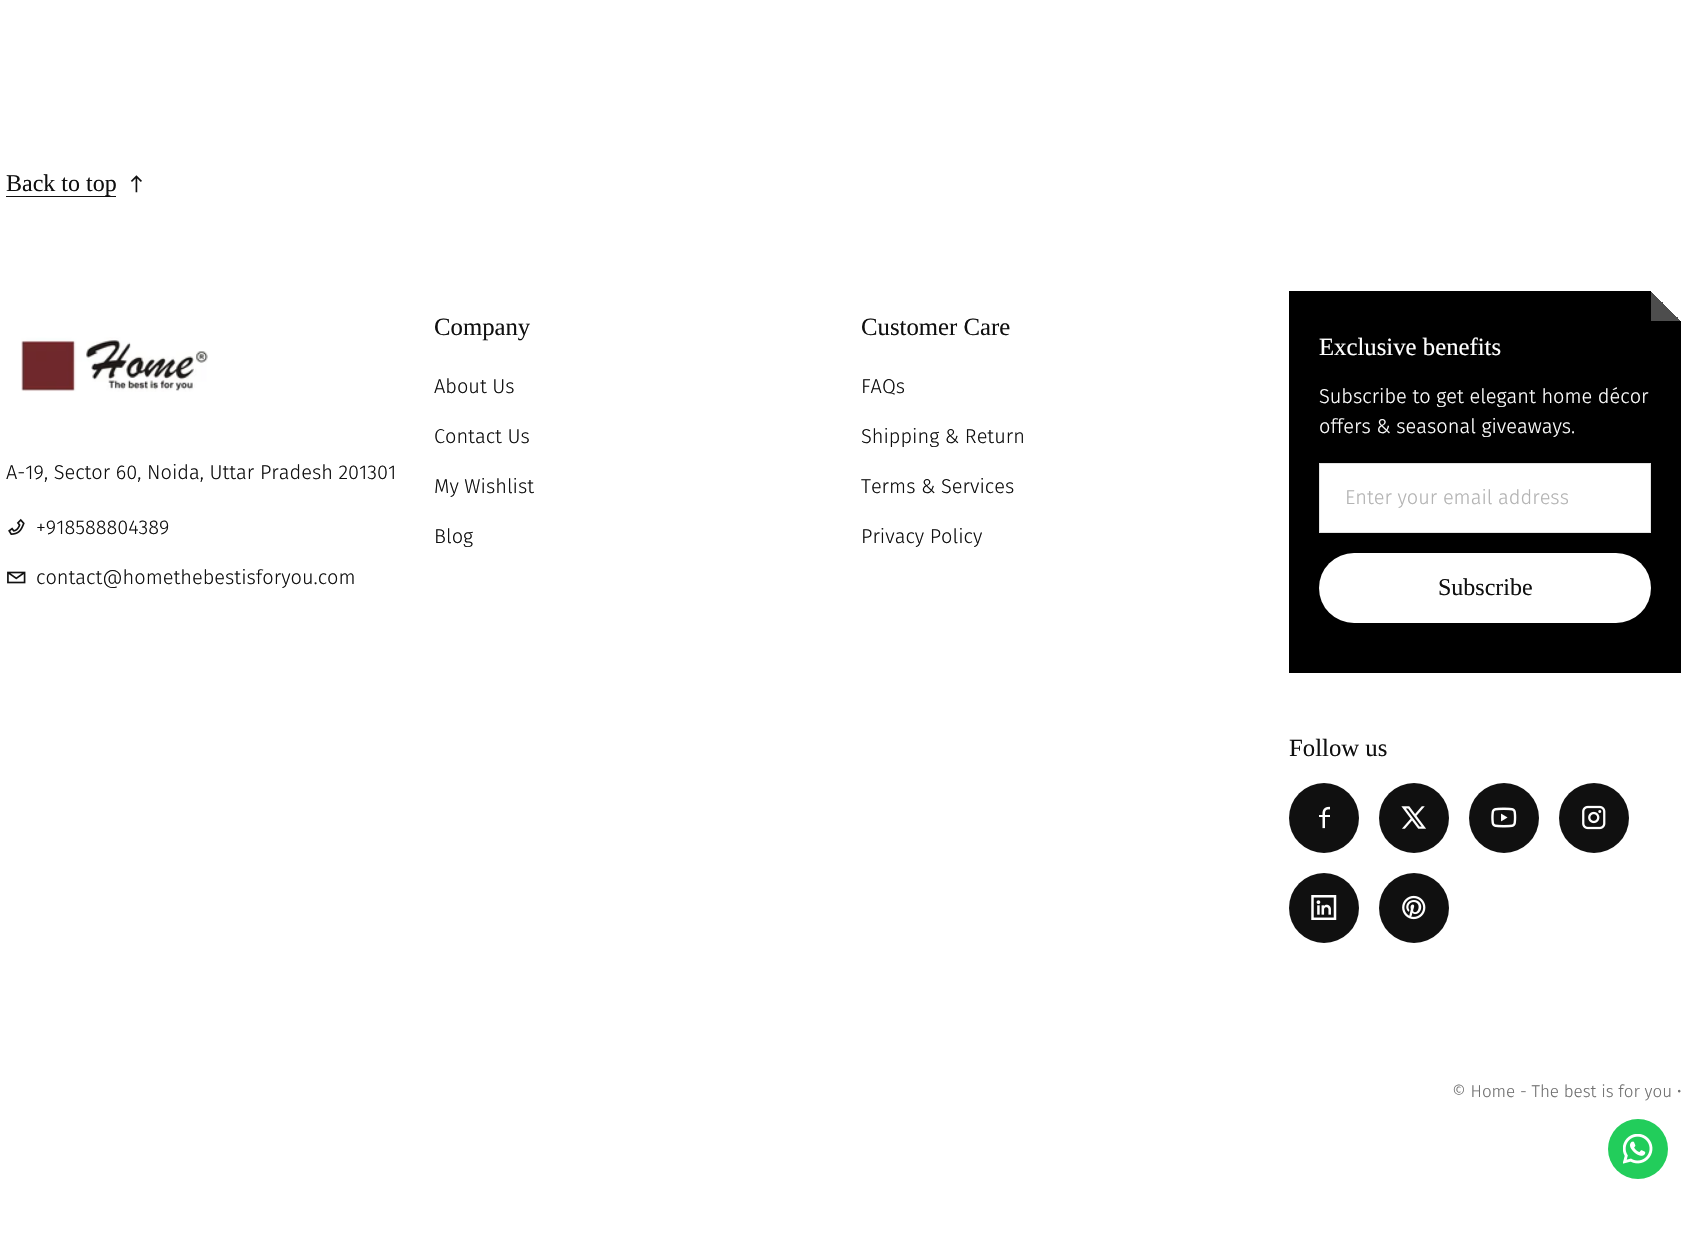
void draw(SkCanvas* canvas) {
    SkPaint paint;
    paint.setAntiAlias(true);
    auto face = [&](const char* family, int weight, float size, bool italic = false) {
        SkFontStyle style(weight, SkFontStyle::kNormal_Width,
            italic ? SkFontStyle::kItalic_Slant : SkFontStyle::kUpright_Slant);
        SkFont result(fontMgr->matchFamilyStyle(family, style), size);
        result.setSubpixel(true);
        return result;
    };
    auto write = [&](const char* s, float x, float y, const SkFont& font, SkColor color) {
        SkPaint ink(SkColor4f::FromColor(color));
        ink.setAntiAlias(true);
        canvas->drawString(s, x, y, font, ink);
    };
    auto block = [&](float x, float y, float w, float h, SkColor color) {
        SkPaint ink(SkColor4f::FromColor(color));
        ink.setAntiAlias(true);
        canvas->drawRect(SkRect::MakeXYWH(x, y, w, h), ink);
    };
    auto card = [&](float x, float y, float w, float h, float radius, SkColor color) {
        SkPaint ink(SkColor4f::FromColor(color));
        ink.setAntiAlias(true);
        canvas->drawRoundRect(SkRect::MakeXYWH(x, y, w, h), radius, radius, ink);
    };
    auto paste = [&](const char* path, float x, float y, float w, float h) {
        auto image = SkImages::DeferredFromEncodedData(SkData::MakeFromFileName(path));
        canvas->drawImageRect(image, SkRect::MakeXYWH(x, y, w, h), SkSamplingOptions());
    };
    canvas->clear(SK_ColorWHITE);
    block(6, 196, 110, 1, SkColorSetRGB(16, 16, 16));
    auto kFont1 = face("Liberation Serif", 400, 24);
    write("Back to top", 6, 191, kFont1, SkColorSetRGB(16, 16, 16));
    paste("pic1.png", 130, 175, 12, 18);
    paste("pic2.png", 21, 337, 187, 55);
    auto kFont2 = face("Fira Sans", 300, 20);
    write("A-19, Sector 60, Noida, Uttar Pradesh 201301", 6, 479, kFont2, SkColorSetRGB(16, 16, 16));
    paste("pic3.png", 8, 518, 17, 17);
    write("+918588804389", 36, 534, kFont2, SkColorSetRGB(16, 16, 16));
    paste("pic4.png", 7, 571, 19, 13);
    write("contact@homethebestisforyou.com", 36, 584, kFont2, SkColorSetRGB(16, 16, 16));
    auto kFont3 = face("Liberation Serif", 400, 24.75f);
    write("Company", 434, 335, kFont3, SkColorSetRGB(16, 16, 16));
    write("About Us", 434, 393, kFont2, SkColorSetRGB(16, 16, 16));
    write("Contact Us", 434, 443, kFont2, SkColorSetRGB(16, 16, 16));
    write("My Wishlist", 434, 493, kFont2, SkColorSetRGB(16, 16, 16));
    write("Blog", 434, 543, kFont2, SkColorSetRGB(16, 16, 16));
    write("Customer Care", 861, 335, kFont3, SkColorSetRGB(16, 16, 16));
    write("FAQs", 861, 393, kFont2, SkColorSetRGB(16, 16, 16));
    write("Shipping & Return", 861, 443, kFont2, SkColorSetRGB(16, 16, 16));
    write("Terms & Services", 861, 493, kFont2, SkColorSetRGB(16, 16, 16));
    write("Privacy Policy", 861, 543, kFont2, SkColorSetRGB(16, 16, 16));
    block(1289, 291, 392, 382, SK_ColorBLACK);
    {
        const SkColor colors[] = {SkColorSetRGB(77, 77, 77), SK_ColorWHITE};
        const float stops[] = {0.5f, 0.5f};
        const SkPoint ends[] = {{1651, 321}, {1681, 291}};
        paint.setShader(SkGradientShader::MakeLinear(ends, colors, stops, 2, SkTileMode::kClamp));
        paint.setAlpha(255);
    }
    canvas->drawRect(SkRect::MakeXYWH(1651, 291, 30, 30), paint);
    write("Exclusive benefits", 1319, 355, kFont3, SK_ColorWHITE);
    write("Subscribe to get elegant home décor", 1319, 403, kFont2, SK_ColorWHITE);
    write("offers & seasonal giveaways.", 1319, 433, kFont2, SK_ColorWHITE);
    paint.setShader(nullptr);
    paint.setColor(SK_ColorWHITE);
    canvas->drawRect(SkRect::MakeXYWH(1319.5f, 463.5f, 331, 69), paint);
    paint.setStyle(SkPaint::kStroke_Style);
    paint.setStrokeWidth(1);
    paint.setColor(SkColorSetRGB(226, 226, 226));
    canvas->drawRect(SkRect::MakeXYWH(1319.5f, 463.5f, 331, 69), paint);
    write("Enter your email address", 1345, 504, kFont2, SkColorSetRGB(179, 179, 179));
    card(1319, 553, 332, 70, 35, SK_ColorWHITE);
    write("Subscribe", 1438, 595, kFont1, SkColorSetRGB(16, 16, 16));
    write("Follow us", 1289, 756, kFont3, SkColorSetRGB(16, 16, 16));
    paint.setStyle(SkPaint::kFill_Style);
    paint.setColor(SkColorSetRGB(16, 16, 16));
    canvas->drawCircle(1324, 818, 35, paint);
    paste("pic5.png", 1319, 806, 11, 23);
    canvas->drawCircle(1414, 818, 35, paint);
    paste("pic6.png", 1401, 806, 25, 23);
    canvas->drawCircle(1504, 818, 35, paint);
    paste("pic7.png", 1491, 807, 26, 21);
    canvas->drawCircle(1594, 818, 35, paint);
    paste("pic8.png", 1582, 805, 24, 25);
    canvas->drawCircle(1324, 908, 35, paint);
    paste("pic9.png", 1311, 895, 26, 25);
    canvas->drawCircle(1414, 908, 35, paint);
    paste("pic10.png", 1402, 895, 24, 25);
    auto kFont4 = face("Fira Sans", 300, 17);
    write("© Home - The best is for you •", 1452, 1097, kFont4, SkColorSetRGB(112, 112, 112));
    paint.setColor(SkColorSetRGB(34, 205, 91));
    canvas->drawCircle(1638, 1149, 30, paint);
    paste("pic11.png", 1623, 1134, 30, 30);
}
